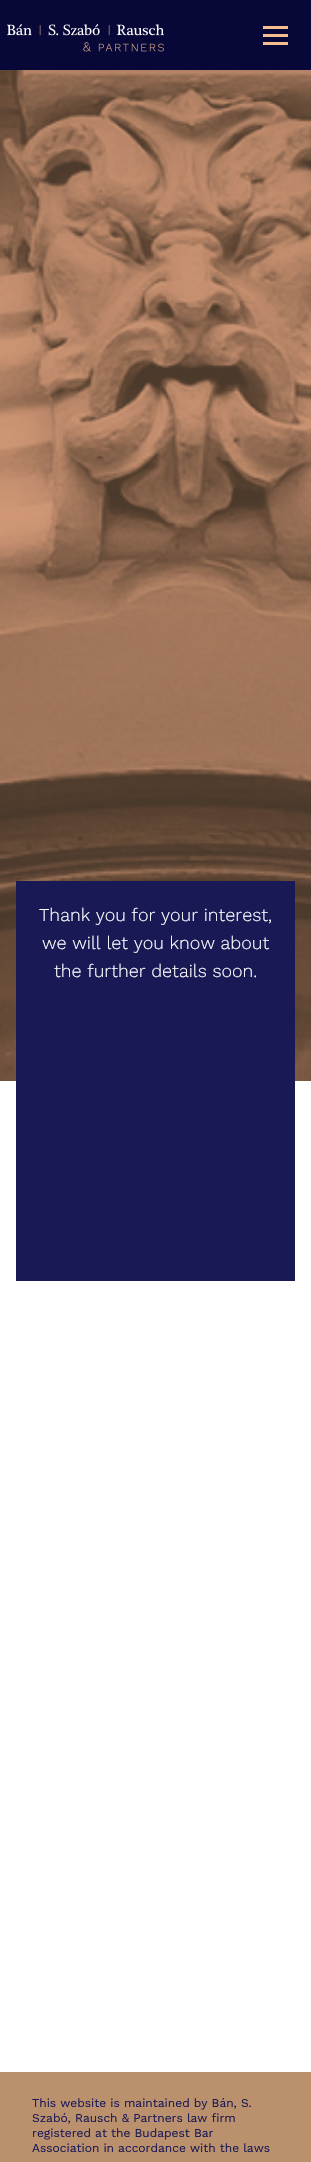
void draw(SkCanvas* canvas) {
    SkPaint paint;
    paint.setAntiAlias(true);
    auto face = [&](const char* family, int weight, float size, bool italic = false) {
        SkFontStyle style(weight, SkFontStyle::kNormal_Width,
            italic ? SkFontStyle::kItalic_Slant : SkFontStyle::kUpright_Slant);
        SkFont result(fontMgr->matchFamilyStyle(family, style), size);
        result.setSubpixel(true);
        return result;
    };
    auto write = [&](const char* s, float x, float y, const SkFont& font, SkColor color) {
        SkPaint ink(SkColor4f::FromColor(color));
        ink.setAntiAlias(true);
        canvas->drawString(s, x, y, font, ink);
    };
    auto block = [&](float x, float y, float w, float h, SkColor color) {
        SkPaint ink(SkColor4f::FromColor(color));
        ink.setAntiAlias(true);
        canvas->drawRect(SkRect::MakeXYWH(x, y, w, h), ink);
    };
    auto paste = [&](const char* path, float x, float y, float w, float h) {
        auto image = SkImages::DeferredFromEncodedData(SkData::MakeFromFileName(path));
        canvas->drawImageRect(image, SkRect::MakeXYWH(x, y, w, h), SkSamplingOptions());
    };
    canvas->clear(SK_ColorWHITE);
    block(0, 0, 311, 70, SkColorSetRGB(8, 8, 56));
    paste("pic1.png", 7, 24, 157, 28);
    block(263, 26, 25, 3, SkColorSetRGB(243, 189, 143));
    block(263, 34, 25, 3, SkColorSetRGB(243, 189, 143));
    block(263, 42, 25, 3, SkColorSetRGB(243, 189, 143));
    paste("pic2.png", 0, 70, 311, 1011);
    block(16, 881, 279, 400, SkColorSetRGB(25, 25, 86));
    auto kFont1 = face("Work Sans", 300, 18);
    write("Thank you for your interest,", 39, 921, kFont1, SK_ColorWHITE);
    write("we will let you know about", 42, 949, kFont1, SK_ColorWHITE);
    write("the further details soon.", 54, 977, kFont1, SK_ColorWHITE);
    block(0, 2072, 311, 90, SkColorSetRGB(186, 144, 109));
    auto kFont2 = face("Work Sans", 400, 12);
    write("This website is maintained by Bán, S.", 32, 2107, kFont2, SkColorSetRGB(25, 25, 86));
    write("Szabó, Rausch & Partners law firm", 32, 2122, kFont2, SkColorSetRGB(25, 25, 86));
    write("registered at the Budapest Bar", 32, 2137, kFont2, SkColorSetRGB(25, 25, 86));
    write("Association in accordance with the laws", 32, 2152, kFont2, SkColorSetRGB(25, 25, 86));
}
